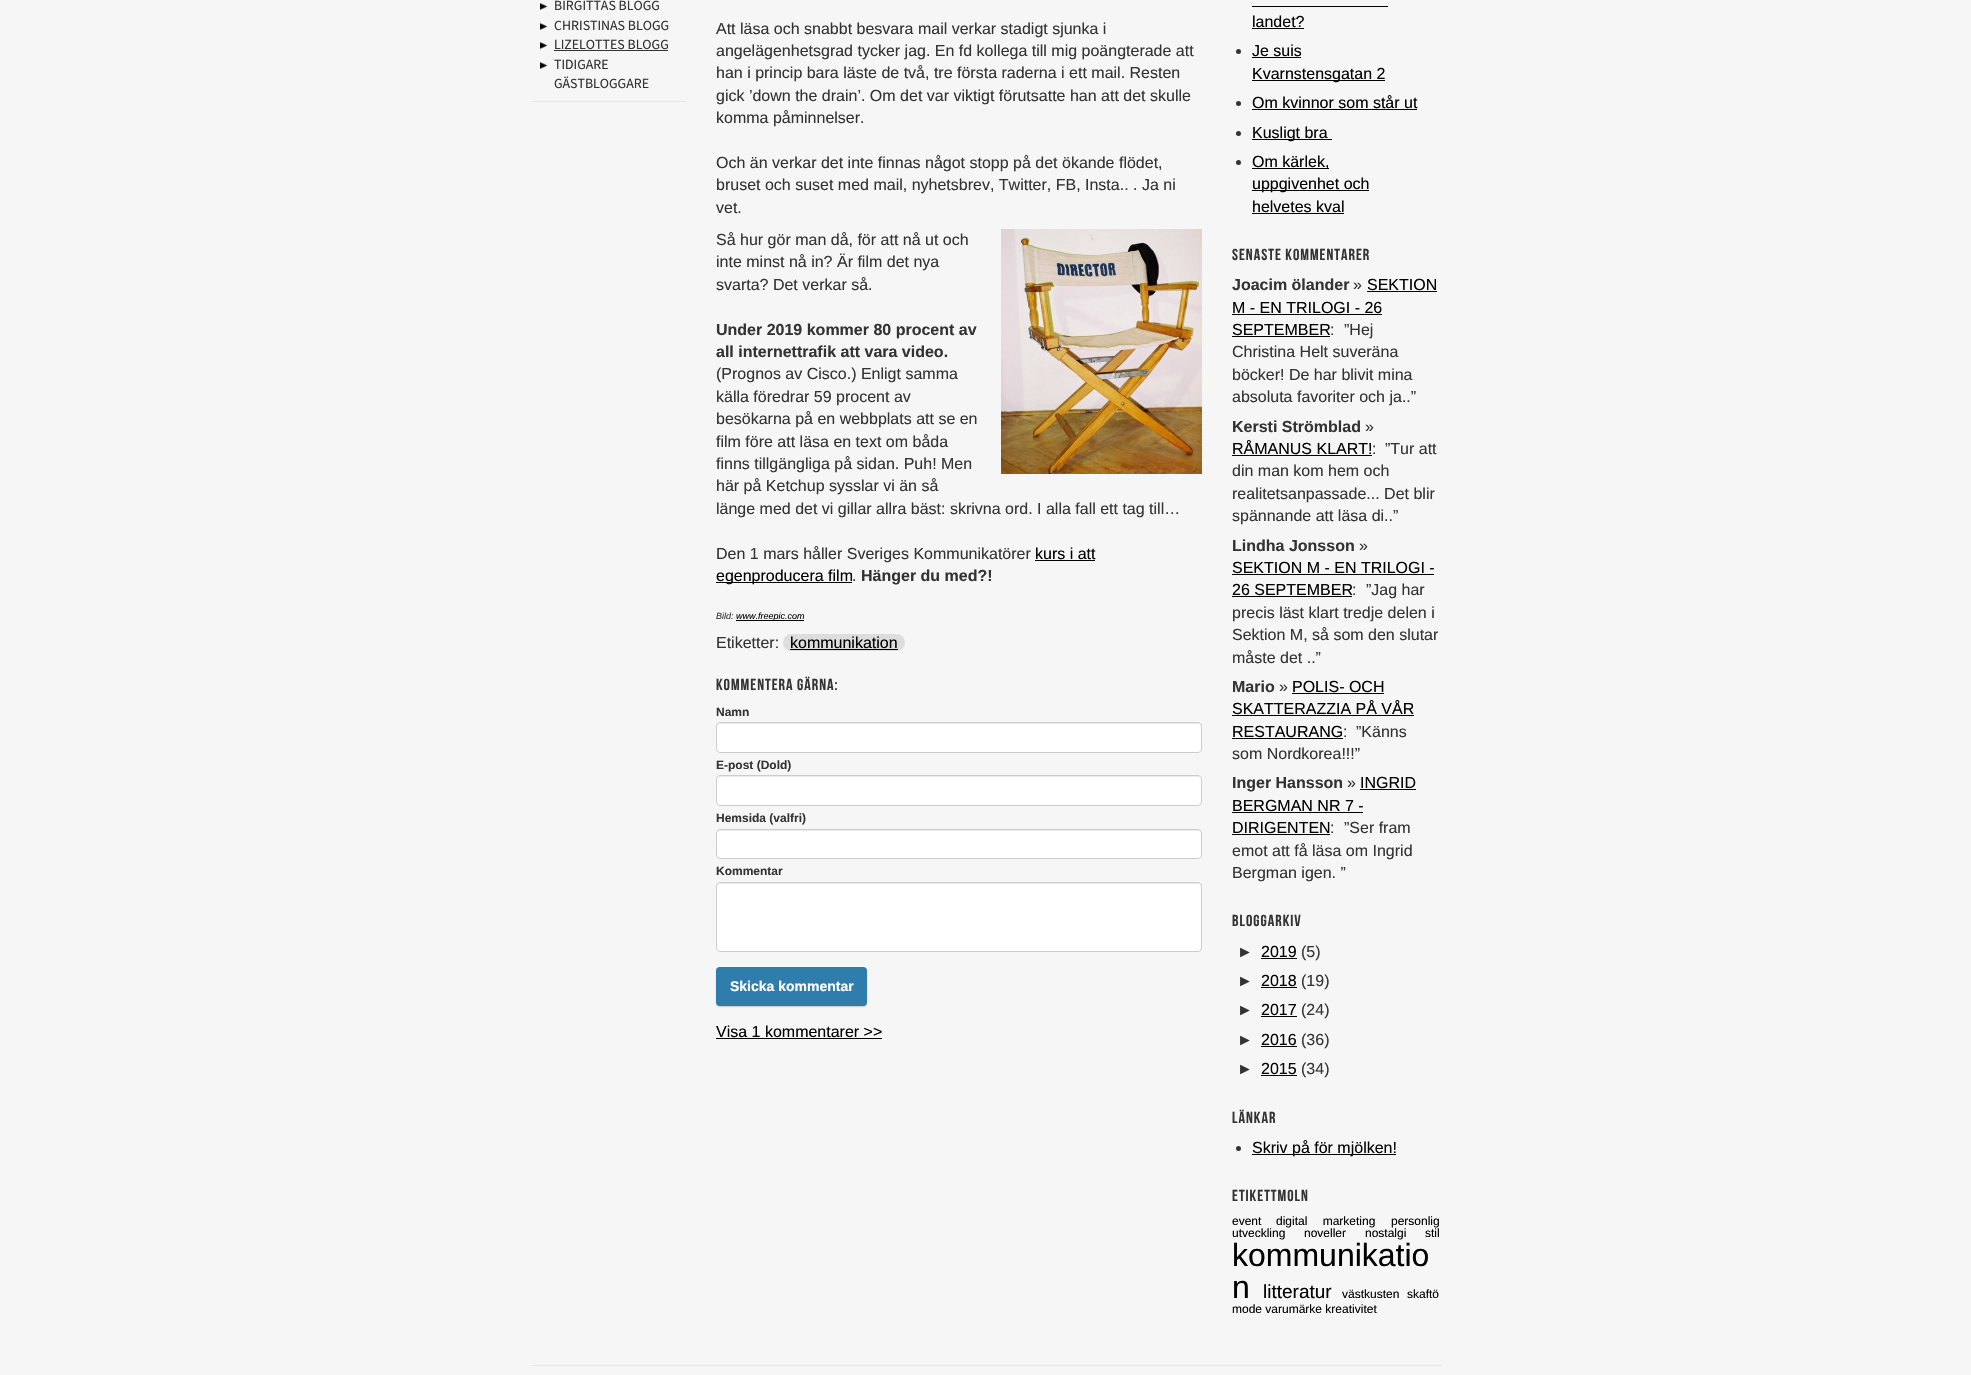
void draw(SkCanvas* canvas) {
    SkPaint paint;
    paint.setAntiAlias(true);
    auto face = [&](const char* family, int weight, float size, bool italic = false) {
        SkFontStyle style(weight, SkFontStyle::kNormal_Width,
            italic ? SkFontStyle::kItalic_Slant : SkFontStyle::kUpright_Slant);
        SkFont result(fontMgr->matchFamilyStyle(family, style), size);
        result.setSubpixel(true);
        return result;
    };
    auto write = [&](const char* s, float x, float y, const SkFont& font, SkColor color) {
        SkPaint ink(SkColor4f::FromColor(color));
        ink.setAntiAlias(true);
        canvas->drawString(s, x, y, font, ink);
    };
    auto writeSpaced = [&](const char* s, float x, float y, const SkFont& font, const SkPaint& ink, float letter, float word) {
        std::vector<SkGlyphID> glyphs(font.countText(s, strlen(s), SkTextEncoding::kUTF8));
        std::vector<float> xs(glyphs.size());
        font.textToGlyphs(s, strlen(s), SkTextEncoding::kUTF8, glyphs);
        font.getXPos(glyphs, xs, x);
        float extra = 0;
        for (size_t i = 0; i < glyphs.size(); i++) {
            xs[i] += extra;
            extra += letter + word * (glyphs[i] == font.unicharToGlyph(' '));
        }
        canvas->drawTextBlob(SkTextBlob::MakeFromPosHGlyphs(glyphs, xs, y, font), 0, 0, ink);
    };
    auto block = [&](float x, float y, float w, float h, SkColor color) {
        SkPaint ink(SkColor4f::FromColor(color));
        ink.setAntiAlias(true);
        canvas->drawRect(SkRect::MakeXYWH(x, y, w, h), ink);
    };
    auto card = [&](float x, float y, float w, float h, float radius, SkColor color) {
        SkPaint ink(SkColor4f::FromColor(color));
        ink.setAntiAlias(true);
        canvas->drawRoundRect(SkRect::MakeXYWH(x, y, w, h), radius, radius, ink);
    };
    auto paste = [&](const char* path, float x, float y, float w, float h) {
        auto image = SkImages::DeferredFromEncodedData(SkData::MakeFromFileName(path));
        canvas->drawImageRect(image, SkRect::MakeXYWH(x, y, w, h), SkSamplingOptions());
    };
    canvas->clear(SkColorSetRGB(246, 246, 246));
    block(531, 101, 155, 1, SkColorSetRGB(230, 230, 230));
    paste("pic1.png", 540, 3, 8, 7);
    auto kFont1 = face("Source Sans Pro", 400, 14);
    write("BIRGITTAS BLOGG", 554, 10, kFont1, SkColorSetRGB(51, 51, 51));
    paste("pic1.png", 540, 23, 8, 7);
    write("CHRISTINAS BLOGG", 554, 30, kFont1, SkColorSetRGB(51, 51, 51));
    paste("pic1.png", 540, 42, 8, 7);
    write("LIZELOTTES BLOGG", 554, 49, kFont1, SkColorSetRGB(51, 51, 51));
    block(554, 50, 114, 1, SkColorSetRGB(51, 51, 51));
    paste("pic1.png", 540, 62, 8, 7);
    write("TIDIGARE", 554, 69, kFont1, SkColorSetRGB(51, 51, 51));
    write("GÄSTBLOGGARE", 554, 88, kFont1, SkColorSetRGB(51, 51, 51));
    auto kFont2 = face("Liberation Sans", 400, 16);
    write("Att läsa och snabbt besvara mail verkar stadigt sjunka i", 716, 34, kFont2, SkColorSetRGB(51, 51, 51));
    write("angelägenhetsgrad tycker jag. En fd kollega till mig poängterade att", 716, 56, kFont2, SkColorSetRGB(51, 51, 51));
    write("han i princip bara läste de två, tre första raderna i ett mail. Resten", 716, 78, kFont2, SkColorSetRGB(51, 51, 51));
    write("gick ’down the drain’. Om det var viktigt förutsatte han att det skulle", 716, 101, kFont2, SkColorSetRGB(51, 51, 51));
    write("komma påminnelser.", 716, 123, kFont2, SkColorSetRGB(51, 51, 51));
    write("Och än verkar det inte finnas något stopp på det ökande flödet,", 716, 168, kFont2, SkColorSetRGB(51, 51, 51));
    write("bruset och suset med mail, nyhetsbrev, Twitter, FB, Insta.. . Ja ni", 716, 190, kFont2, SkColorSetRGB(51, 51, 51));
    write("vet.", 716, 213, kFont2, SkColorSetRGB(51, 51, 51));
    paste("pic2.png", 1001, 229, 201, 245);
    write("Så hur gör man då, för att nå ut och", 716, 245, kFont2, SkColorSetRGB(51, 51, 51));
    write("inte minst nå in? Är film det nya", 716, 267, kFont2, SkColorSetRGB(51, 51, 51));
    write("svarta? Det verkar så.", 716, 290, kFont2, SkColorSetRGB(51, 51, 51));
    auto kFont3 = face("Liberation Sans", 700, 16);
    write("Under 2019 kommer 80 procent av", 716, 335, kFont3, SkColorSetRGB(51, 51, 51));
    write("all internettrafik att vara video.", 716, 357, kFont3, SkColorSetRGB(51, 51, 51));
    write("(Prognos av Cisco.) Enligt samma", 716, 379, kFont2, SkColorSetRGB(51, 51, 51));
    write("källa föredrar 59 procent av", 716, 402, kFont2, SkColorSetRGB(51, 51, 51));
    write("besökarna på en webbplats att se en", 716, 424, kFont2, SkColorSetRGB(51, 51, 51));
    write("film före att läsa en text om båda", 716, 447, kFont2, SkColorSetRGB(51, 51, 51));
    write("finns tillgängliga på sidan. Puh! Men", 716, 469, kFont2, SkColorSetRGB(51, 51, 51));
    write("här på Ketchup sysslar vi än så", 716, 491, kFont2, SkColorSetRGB(51, 51, 51));
    write("länge med det vi gillar allra bäst: skrivna ord. I alla fall ett tag till…", 716, 514, kFont2, SkColorSetRGB(51, 51, 51));
    write("Den 1 mars håller Sveriges Kommunikatörer", 716, 559, kFont2, SkColorSetRGB(51, 51, 51));
    write("kurs i att", 1035, 559, kFont2, SK_ColorBLACK);
    block(1035, 560, 60, 1, SK_ColorBLACK);
    block(716, 582, 136, 1, SK_ColorBLACK);
    write("egenproducera film", 716, 581, kFont2, SK_ColorBLACK);
    write(".", 852, 581, kFont2, SkColorSetRGB(51, 51, 51));
    write("Hänger du med?!", 861, 581, kFont3, SkColorSetRGB(51, 51, 51));
    auto kFont4 = face("Liberation Sans", 400, 9, true);
    write("Bild:", 716, 619, kFont4, SkColorSetRGB(51, 51, 51));
    block(736, 620, 68, 1, SK_ColorBLACK);
    write("www.freepic.com", 736, 619, kFont4, SK_ColorBLACK);
    write("Etiketter:", 716, 648, kFont2, SkColorSetRGB(51, 51, 51));
    card(783, 634, 122, 17, 8.5f, SkColorSetRGB(221, 221, 221));
    write("kommunikation", 790, 648, kFont2, SK_ColorBLACK);
    block(790, 649, 108, 1, SK_ColorBLACK);
    auto kFont5 = face("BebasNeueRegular", 400, 16);
    paint.setColor(SkColorSetRGB(51, 51, 51));
    writeSpaced("Kommentera gärna:", 716, 690, kFont5, paint, 1, 0);
    auto kFont6 = face("Liberation Sans", 700, 12);
    write("Namn", 716, 716, kFont6, SkColorSetRGB(51, 51, 51));
    card(716, 722, 486, 31, 4, SK_ColorWHITE);
    paint.setColor(SkColorSetRGB(236, 236, 236));
    canvas->drawPath(SkPathBuilder().moveTo(720, 724).lineTo(1198, 724).cubicTo(1200, 724, 1201, 725, 1201, 727).lineTo(1201, 726).cubicTo(1201, 724, 1200, 723, 1198, 723).lineTo(720, 723).cubicTo(718, 723, 717, 724, 717, 726).lineTo(717, 727).cubicTo(717, 725, 718, 724, 720, 724).close().detach(), paint);
    paint.setStyle(SkPaint::kStroke_Style);
    paint.setStrokeWidth(1);
    paint.setColor(SkColorSetRGB(204, 204, 204));
    canvas->drawRoundRect(SkRect::MakeXYWH(716.5f, 722.5f, 485, 30), 3.5f, 3.5f, paint);
    write("E-post (Dold)", 716, 769, kFont6, SkColorSetRGB(51, 51, 51));
    card(716, 775, 486, 31, 4, SK_ColorWHITE);
    paint.setStyle(SkPaint::kFill_Style);
    paint.setColor(SkColorSetRGB(236, 236, 236));
    canvas->drawPath(SkPathBuilder().moveTo(720, 777).lineTo(1198, 777).cubicTo(1200, 777, 1201, 778, 1201, 780).lineTo(1201, 779).cubicTo(1201, 777, 1200, 776, 1198, 776).lineTo(720, 776).cubicTo(718, 776, 717, 777, 717, 779).lineTo(717, 780).cubicTo(717, 778, 718, 777, 720, 777).close().detach(), paint);
    paint.setStyle(SkPaint::kStroke_Style);
    paint.setColor(SkColorSetRGB(204, 204, 204));
    canvas->drawRoundRect(SkRect::MakeXYWH(716.5f, 775.5f, 485, 30), 3.5f, 3.5f, paint);
    write("Hemsida (valfri)", 716, 822, kFont6, SkColorSetRGB(51, 51, 51));
    card(716, 829, 486, 30, 4, SK_ColorWHITE);
    paint.setStyle(SkPaint::kFill_Style);
    paint.setColor(SkColorSetRGB(236, 236, 236));
    canvas->drawPath(SkPathBuilder().moveTo(720, 831).lineTo(1198, 831).cubicTo(1200, 831, 1201, 832, 1201, 834).lineTo(1201, 833).cubicTo(1201, 831, 1200, 830, 1198, 830).lineTo(720, 830).cubicTo(718, 830, 717, 831, 717, 833).lineTo(717, 834).cubicTo(717, 832, 718, 831, 720, 831).close().detach(), paint);
    paint.setStyle(SkPaint::kStroke_Style);
    paint.setColor(SkColorSetRGB(204, 204, 204));
    canvas->drawRoundRect(SkRect::MakeXYWH(716.5f, 829.5f, 485, 29), 3.5f, 3.5f, paint);
    write("Kommentar", 716, 875, kFont6, SkColorSetRGB(51, 51, 51));
    card(716, 882, 486, 70, 4, SK_ColorWHITE);
    paint.setStyle(SkPaint::kFill_Style);
    paint.setColor(SkColorSetRGB(236, 236, 236));
    canvas->drawPath(SkPathBuilder().moveTo(720, 884).lineTo(1198, 884).cubicTo(1200, 884, 1201, 885, 1201, 887).lineTo(1201, 886).cubicTo(1201, 884, 1200, 883, 1198, 883).lineTo(720, 883).cubicTo(718, 883, 717, 884, 717, 886).lineTo(717, 887).cubicTo(717, 885, 718, 884, 720, 884).close().detach(), paint);
    paint.setStyle(SkPaint::kStroke_Style);
    paint.setColor(SkColorSetRGB(204, 204, 204));
    canvas->drawRoundRect(SkRect::MakeXYWH(716.5f, 882.5f, 485, 69), 3.5f, 3.5f, paint);
    paint.setStyle(SkPaint::kFill_Style);
    paint.setColor(SkColorSetARGB(153, 0, 0, 0));
    paint.setMaskFilter(SkMaskFilter::MakeBlur(kNormal_SkBlurStyle, 1));
    canvas->drawRoundRect(SkRect::MakeXYWH(717, 969, 149, 37), 3, 3, paint);
    paint.setMaskFilter(nullptr);
    card(716, 967, 151, 39, 4, SkColorSetRGB(47, 125, 173));
    auto kFont7 = face("Liberation Sans", 700, 14);
    write("Skicka kommentar", 730, 991, kFont7, SK_ColorWHITE);
    write("Visa 1 kommentarer >>", 716, 1037, kFont2, SK_ColorBLACK);
    block(716, 1038, 166, 1, SK_ColorBLACK);
    write("landet?", 1252, 27, kFont2, SK_ColorBLACK);
    block(1252, 6, 136, 1, SK_ColorBLACK);
    block(1252, 28, 52, 1, SK_ColorBLACK);
    paint.setColor(SkColorSetRGB(51, 51, 51));
    canvas->drawCircle(1238.5f, 51.5f, 2.5f, paint);
    write("Je suis", 1252, 56, kFont2, SK_ColorBLACK);
    block(1252, 57, 49, 1, SK_ColorBLACK);
    block(1252, 80, 133, 1, SK_ColorBLACK);
    write("Kvarnstensgatan 2", 1252, 79, kFont2, SK_ColorBLACK);
    canvas->drawCircle(1238.5f, 103.5f, 2.5f, paint);
    write("Om kvinnor som står ut", 1252, 108, kFont2, SK_ColorBLACK);
    block(1252, 109, 165, 1, SK_ColorBLACK);
    canvas->drawCircle(1238.5f, 133.5f, 2.5f, paint);
    block(1252, 139, 80, 1, SK_ColorBLACK);
    write("Kusligt bra", 1252, 138, kFont2, SK_ColorBLACK);
    canvas->drawCircle(1238.5f, 162.5f, 2.5f, paint);
    block(1252, 168, 77, 1, SK_ColorBLACK);
    write("Om kärlek,", 1252, 167, kFont2, SK_ColorBLACK);
    block(1252, 190, 117, 1, SK_ColorBLACK);
    write("uppgivenhet och", 1252, 189, kFont2, SK_ColorBLACK);
    write("helvetes kval", 1252, 212, kFont2, SK_ColorBLACK);
    block(1252, 213, 92, 1, SK_ColorBLACK);
    writeSpaced("Senaste kommentarer", 1232, 260, kFont5, paint, 1, 0);
    write("Joacim ölander", 1232, 290, kFont3, SkColorSetRGB(51, 51, 51));
    write("»", 1353, 290, kFont2, SkColorSetRGB(51, 51, 51));
    write("SEKTION", 1367, 290, kFont2, SK_ColorBLACK);
    block(1367, 291, 70, 1, SK_ColorBLACK);
    write("M - EN TRILOGI - 26", 1232, 313, kFont2, SK_ColorBLACK);
    block(1232, 314, 150, 1, SK_ColorBLACK);
    write("SEPTEMBER", 1232, 335, kFont2, SK_ColorBLACK);
    block(1232, 336, 98, 1, SK_ColorBLACK);
    write(":", 1330, 335, kFont2, SkColorSetRGB(51, 51, 51));
    write("”Hej", 1344, 335, kFont2, SkColorSetRGB(51, 51, 51));
    write("Christina Helt suveräna", 1232, 357, kFont2, SkColorSetRGB(51, 51, 51));
    write("böcker! De har blivit mina", 1232, 380, kFont2, SkColorSetRGB(51, 51, 51));
    write("absoluta favoriter och ja..”", 1232, 402, kFont2, SkColorSetRGB(51, 51, 51));
    write("Kersti Strömblad", 1232, 432, kFont3, SkColorSetRGB(51, 51, 51));
    write("»", 1365, 432, kFont2, SkColorSetRGB(51, 51, 51));
    write("RÅMANUS KLART!", 1232, 454, kFont2, SK_ColorBLACK);
    block(1232, 455, 140, 1, SK_ColorBLACK);
    write(":", 1372, 454, kFont2, SkColorSetRGB(51, 51, 51));
    write("”Tur att", 1385, 454, kFont2, SkColorSetRGB(51, 51, 51));
    write("din man kom hem och", 1232, 476, kFont2, SkColorSetRGB(51, 51, 51));
    write("realitetsanpassade... Det blir", 1232, 499, kFont2, SkColorSetRGB(51, 51, 51));
    write("spännande att läsa di..”", 1232, 521, kFont2, SkColorSetRGB(51, 51, 51));
    write("Lindha Jonsson", 1232, 551, kFont3, SkColorSetRGB(51, 51, 51));
    write("»", 1359, 551, kFont2, SkColorSetRGB(51, 51, 51));
    write("SEKTION M - EN TRILOGI -", 1232, 573, kFont2, SK_ColorBLACK);
    block(1232, 574, 202, 1, SK_ColorBLACK);
    write("26 SEPTEMBER", 1232, 595, kFont2, SK_ColorBLACK);
    block(1232, 596, 120, 1, SK_ColorBLACK);
    write(":", 1352, 595, kFont2, SkColorSetRGB(51, 51, 51));
    write("”Jag har", 1366, 595, kFont2, SkColorSetRGB(51, 51, 51));
    write("precis läst klart tredje delen i", 1232, 618, kFont2, SkColorSetRGB(51, 51, 51));
    write("Sektion M, så som den slutar", 1232, 640, kFont2, SkColorSetRGB(51, 51, 51));
    write("måste det ..”", 1232, 663, kFont2, SkColorSetRGB(51, 51, 51));
    write("Mario", 1232, 692, kFont3, SkColorSetRGB(51, 51, 51));
    write("»", 1279, 692, kFont2, SkColorSetRGB(51, 51, 51));
    write("POLIS- OCH", 1292, 692, kFont2, SK_ColorBLACK);
    block(1292, 693, 92, 1, SK_ColorBLACK);
    write("SKATTERAZZIA PÅ VÅR", 1232, 714, kFont2, SK_ColorBLACK);
    block(1232, 715, 182, 1, SK_ColorBLACK);
    write("RESTAURANG", 1232, 737, kFont2, SK_ColorBLACK);
    block(1232, 738, 111, 1, SK_ColorBLACK);
    write(":", 1343, 737, kFont2, SkColorSetRGB(51, 51, 51));
    write("”Känns", 1356, 737, kFont2, SkColorSetRGB(51, 51, 51));
    write("som Nordkorea!!!”", 1232, 759, kFont2, SkColorSetRGB(51, 51, 51));
    write("Inger Hansson", 1232, 788, kFont3, SkColorSetRGB(51, 51, 51));
    write("»", 1347, 788, kFont2, SkColorSetRGB(51, 51, 51));
    write("INGRID", 1360, 788, kFont2, SK_ColorBLACK);
    block(1360, 789, 56, 1, SK_ColorBLACK);
    write("BERGMAN NR 7 -", 1232, 811, kFont2, SK_ColorBLACK);
    block(1232, 812, 131, 1, SK_ColorBLACK);
    write("DIRIGENTEN", 1232, 833, kFont2, SK_ColorBLACK);
    block(1232, 834, 98, 1, SK_ColorBLACK);
    write(":", 1330, 833, kFont2, SkColorSetRGB(51, 51, 51));
    write("”Ser fram", 1344, 833, kFont2, SkColorSetRGB(51, 51, 51));
    write("emot att få läsa om Ingrid", 1232, 856, kFont2, SkColorSetRGB(51, 51, 51));
    write("Bergman igen. ”", 1232, 878, kFont2, SkColorSetRGB(51, 51, 51));
    writeSpaced("Bloggarkiv", 1232, 926, kFont5, paint, 1, 0);
    write("►", 1237, 957, kFont2, SkColorSetRGB(51, 51, 51));
    write("2019", 1261, 957, kFont2, SK_ColorBLACK);
    block(1261, 958, 36, 1, SK_ColorBLACK);
    write("(5)", 1301, 957, kFont2, SkColorSetRGB(51, 51, 51));
    write("►", 1237, 986, kFont2, SkColorSetRGB(51, 51, 51));
    write("2018", 1261, 986, kFont2, SK_ColorBLACK);
    block(1261, 987, 36, 1, SK_ColorBLACK);
    write("(19)", 1301, 986, kFont2, SkColorSetRGB(51, 51, 51));
    write("►", 1237, 1015, kFont2, SkColorSetRGB(51, 51, 51));
    write("2017", 1261, 1015, kFont2, SK_ColorBLACK);
    block(1261, 1016, 36, 1, SK_ColorBLACK);
    write("(24)", 1301, 1015, kFont2, SkColorSetRGB(51, 51, 51));
    write("►", 1237, 1045, kFont2, SkColorSetRGB(51, 51, 51));
    write("2016", 1261, 1045, kFont2, SK_ColorBLACK);
    block(1261, 1046, 36, 1, SK_ColorBLACK);
    write("(36)", 1301, 1045, kFont2, SkColorSetRGB(51, 51, 51));
    write("►", 1237, 1074, kFont2, SkColorSetRGB(51, 51, 51));
    write("2015", 1261, 1074, kFont2, SK_ColorBLACK);
    block(1261, 1075, 36, 1, SK_ColorBLACK);
    write("(34)", 1301, 1074, kFont2, SkColorSetRGB(51, 51, 51));
    writeSpaced("Länkar", 1232, 1123, kFont5, paint, 1, 0);
    canvas->drawCircle(1238.5f, 1148.5f, 2.5f, paint);
    block(1252, 1154, 144, 1, SK_ColorBLACK);
    write("Skriv på för mjölken!", 1252, 1153, kFont2, SK_ColorBLACK);
    writeSpaced("Etikettmoln", 1232, 1201, kFont5, paint, 1, 0);
    auto kFont8 = face("Liberation Sans", 400, 12);
    write("event", 1232, 1225, kFont8, SK_ColorBLACK);
    paint.setColor(SK_ColorBLACK);
    writeSpaced("digital marketing", 1276, 1225, kFont8, paint, 0, 12);
    write("personlig", 1391, 1225, kFont8, SK_ColorBLACK);
    write("utveckling", 1232, 1237, kFont8, SK_ColorBLACK);
    write("noveller", 1304, 1237, kFont8, SK_ColorBLACK);
    write("nostalgi", 1365, 1237, kFont8, SK_ColorBLACK);
    write("stil", 1425, 1237, kFont8, SK_ColorBLACK);
    auto kFont9 = face("Liberation Sans", 400, 32);
    write("kommunikatio", 1232, 1266, kFont9, SK_ColorBLACK);
    write("n", 1232, 1298, kFont9, SK_ColorBLACK);
    auto kFont10 = face("Liberation Sans", 400, 19);
    write("litteratur", 1263, 1298, kFont10, SK_ColorBLACK);
    write("västkusten", 1342, 1298, kFont8, SK_ColorBLACK);
    write("skaftö", 1407, 1298, kFont8, SK_ColorBLACK);
    write("mode varumärke kreativitet", 1232, 1313, kFont8, SK_ColorBLACK);
    block(531, 1365, 910, 1, SkColorSetRGB(230, 230, 230));
}
